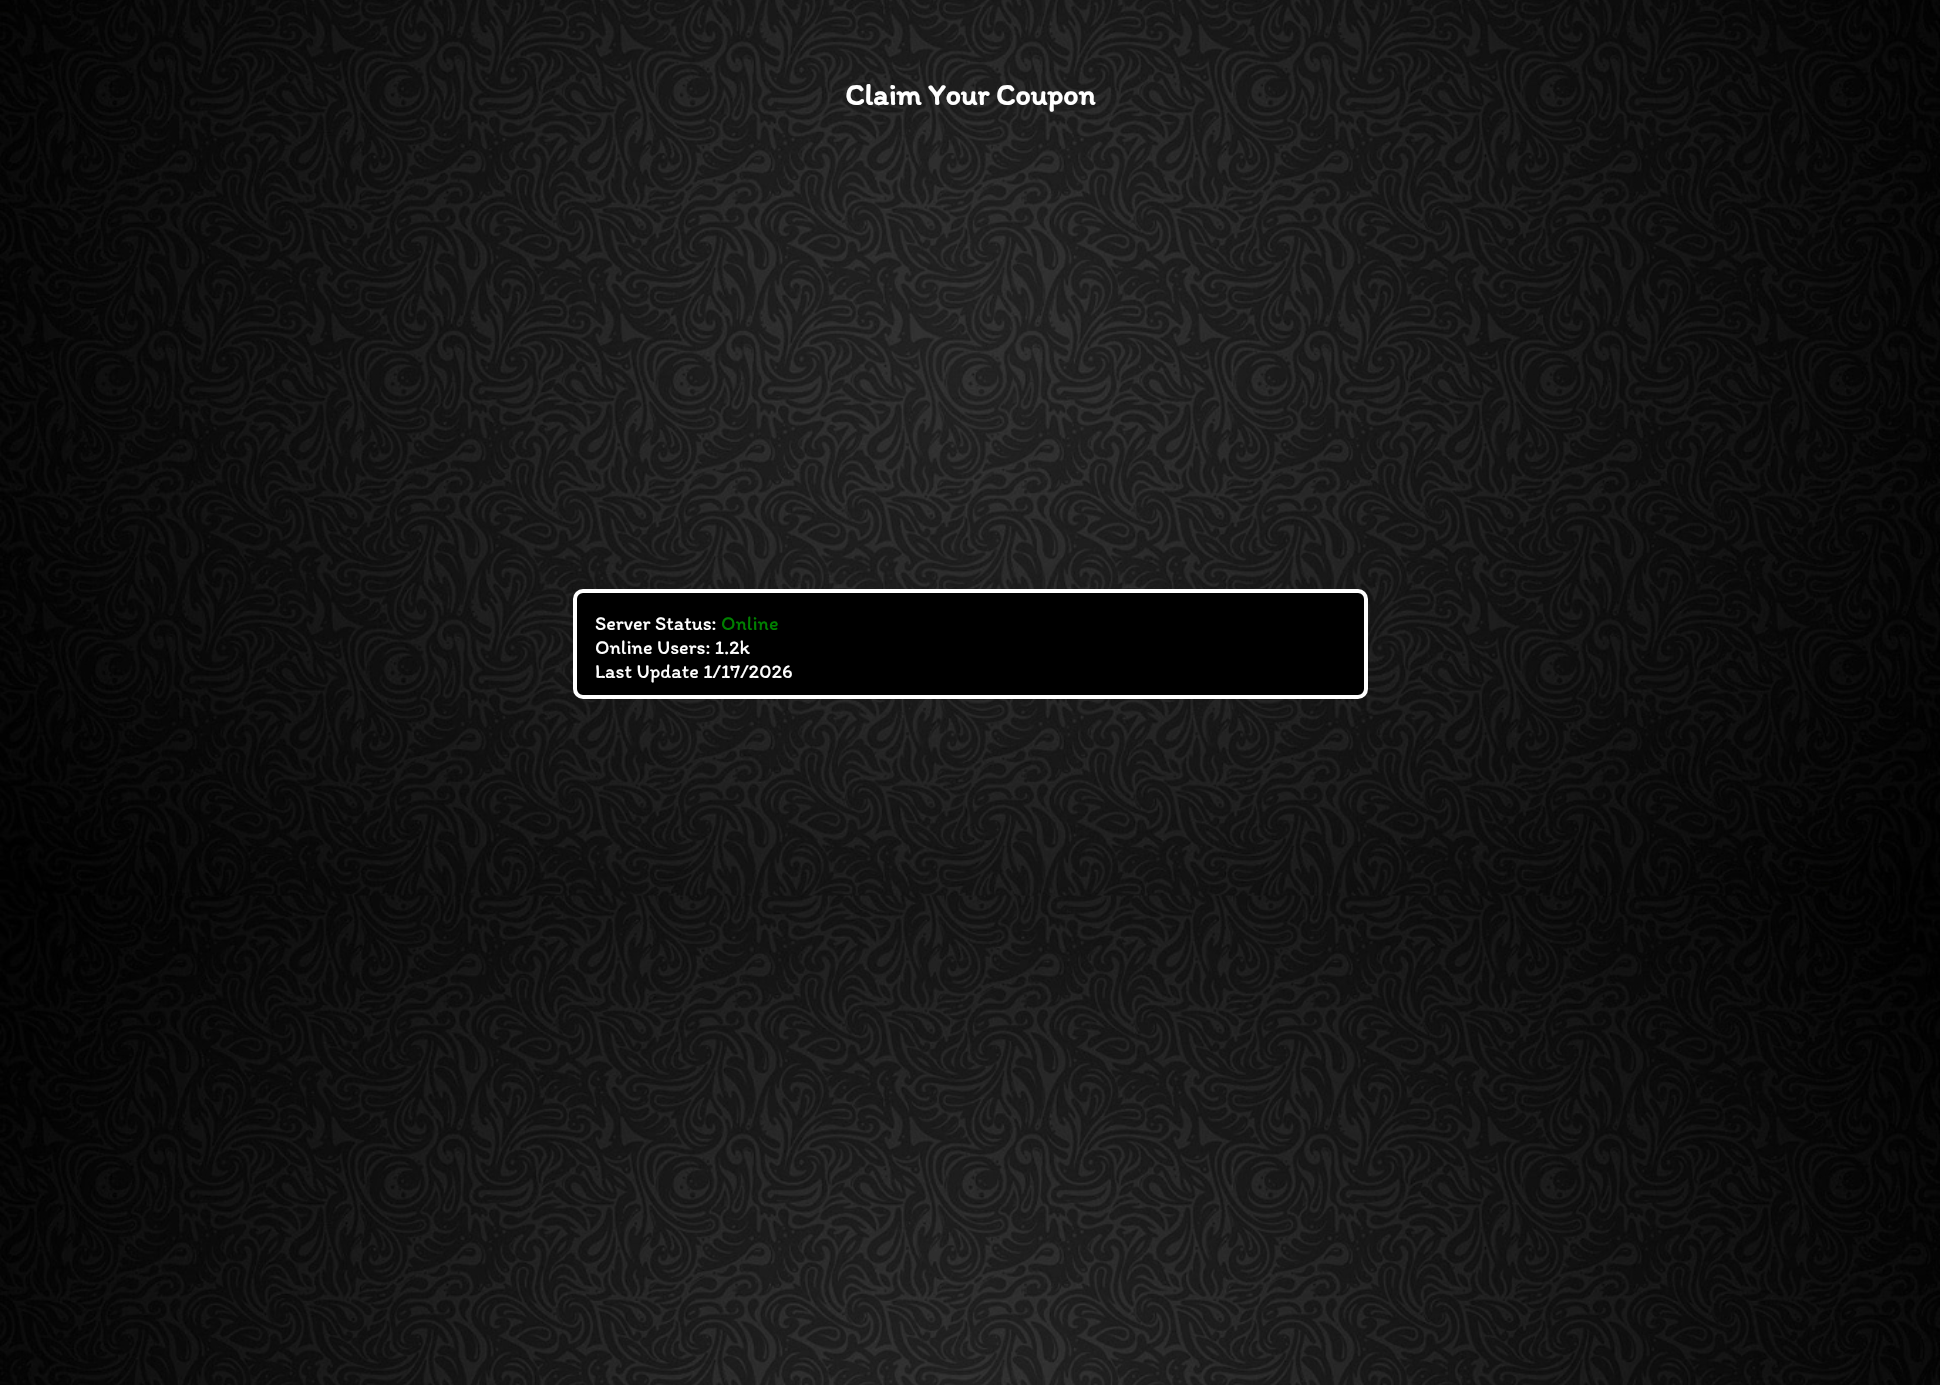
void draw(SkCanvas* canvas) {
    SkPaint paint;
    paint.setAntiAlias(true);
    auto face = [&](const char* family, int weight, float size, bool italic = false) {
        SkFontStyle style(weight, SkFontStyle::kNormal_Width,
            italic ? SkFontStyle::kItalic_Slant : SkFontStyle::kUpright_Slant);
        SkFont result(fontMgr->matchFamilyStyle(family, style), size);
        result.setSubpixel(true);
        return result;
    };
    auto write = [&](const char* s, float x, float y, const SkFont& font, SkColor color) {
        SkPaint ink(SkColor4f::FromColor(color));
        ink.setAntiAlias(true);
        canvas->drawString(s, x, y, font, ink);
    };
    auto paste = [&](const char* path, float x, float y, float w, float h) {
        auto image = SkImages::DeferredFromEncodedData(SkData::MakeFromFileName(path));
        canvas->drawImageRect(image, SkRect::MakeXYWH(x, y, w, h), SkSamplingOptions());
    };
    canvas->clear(SK_ColorWHITE);
    paste("pic1.png", 0, 0, 1940, 1385);
    auto kFont1 = face("Itim", 700, 30);
    write("Claim Your Coupon", 845, 105, kFont1, SK_ColorWHITE);
    paint.setColor(SK_ColorBLACK);
    canvas->drawRoundRect(SkRect::MakeXYWH(575, 591, 791, 106), 8, 8, paint);
    paint.setStyle(SkPaint::kStroke_Style);
    paint.setStrokeWidth(4);
    paint.setColor(SK_ColorWHITE);
    canvas->drawRoundRect(SkRect::MakeXYWH(575, 591, 791, 106), 8, 8, paint);
    auto kFont2 = face("Itim", 400, 20);
    write("Server Status:", 595, 630, kFont2, SK_ColorWHITE);
    write("Online", 721, 630, kFont2, SkColorSetRGB(0, 128, 0));
    write("Online Users: 1.2k", 595, 654, kFont2, SK_ColorWHITE);
    write("Last Update 1/17/2026", 595, 678, kFont2, SK_ColorWHITE);
}
